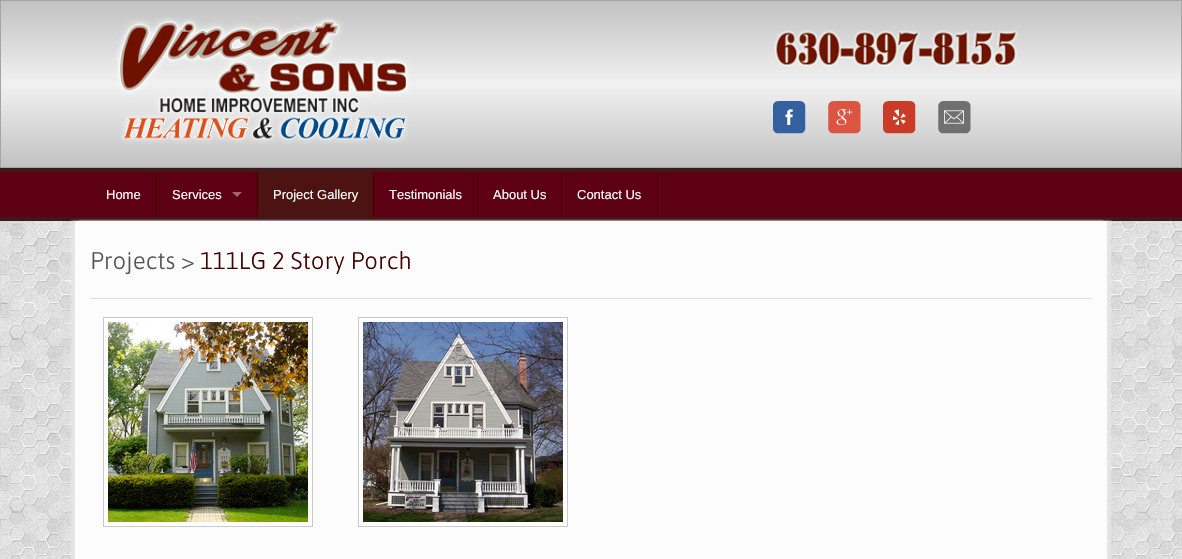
void draw(SkCanvas* canvas) {
    SkPaint paint;
    paint.setAntiAlias(true);
    auto face = [&](const char* family, int weight, float size, bool italic = false) {
        SkFontStyle style(weight, SkFontStyle::kNormal_Width,
            italic ? SkFontStyle::kItalic_Slant : SkFontStyle::kUpright_Slant);
        SkFont result(fontMgr->matchFamilyStyle(family, style), size);
        result.setSubpixel(true);
        return result;
    };
    auto write = [&](const char* s, float x, float y, const SkFont& font, SkColor color) {
        SkPaint ink(SkColor4f::FromColor(color));
        ink.setAntiAlias(true);
        canvas->drawString(s, x, y, font, ink);
    };
    auto block = [&](float x, float y, float w, float h, SkColor color) {
        SkPaint ink(SkColor4f::FromColor(color));
        ink.setAntiAlias(true);
        canvas->drawRect(SkRect::MakeXYWH(x, y, w, h), ink);
    };
    auto paste = [&](const char* path, float x, float y, float w, float h) {
        auto image = SkImages::DeferredFromEncodedData(SkData::MakeFromFileName(path));
        canvas->drawImageRect(image, SkRect::MakeXYWH(x, y, w, h), SkSamplingOptions());
    };
    canvas->clear(SK_ColorWHITE);
    paste("pic1.png", 0, 221, 1182, 338);
    {
        const SkColor colors[] = {SkColorSetRGB(194, 194, 194), SkColorSetRGB(241, 241, 241), SkColorSetRGB(194, 194, 194)};
        const float stops[] = {0, 0.5f, 1};
        const SkPoint ends[] = {{591, 1}, {591, 167}};
        paint.setShader(SkGradientShader::MakeLinear(ends, colors, stops, 3, SkTileMode::kClamp));
        paint.setAlpha(255);
    }
    canvas->drawRect(SkRect::MakeXYWH(1, 1, 1180, 166), paint);
    paint.setStyle(SkPaint::kStroke_Style);
    paint.setStrokeWidth(1);
    paint.setShader(nullptr);
    paint.setColor(SkColorSetRGB(166, 164, 166));
    canvas->drawRect(SkRect::MakeXYWH(0.5f, 0.5f, 1181, 167), paint);
    paste("pic2.png", 116, 17, 293, 127);
    paste("pic3.png", 774, 30, 244, 37);
    paste("pic4.png", 773, 101, 33, 33);
    paste("pic5.png", 828, 101, 33, 33);
    paste("pic6.png", 883, 101, 33, 33);
    paste("pic7.png", 938, 101, 33, 33);
    block(0, 172, 1182, 45, SkColorSetRGB(94, 0, 20));
    block(0, 168, 1182, 4, SkColorSetRGB(64, 24, 24));
    auto kFont1 = face("Liberation Sans", 400, 13);
    write("Home", 106, 199, kFont1, SK_ColorWHITE);
    block(156, 172, 1, 45, SkColorSetRGB(68, 0, 0));
    write("Services", 172, 199, kFont1, SK_ColorWHITE);
    paint.setStyle(SkPaint::kFill_Style);
    paint.setColor(SkColorSetRGB(158, 102, 114));
    canvas->drawPath(SkPathBuilder().moveTo(232, 192).lineTo(242, 192).lineTo(237, 197).close().detach(), paint);
    block(257, 172, 1, 45, SkColorSetRGB(68, 0, 0));
    block(258, 172, 115, 45, SkColorSetRGB(77, 19, 19));
    write("Project Gallery", 273, 199, kFont1, SK_ColorWHITE);
    block(373, 172, 1, 45, SkColorSetRGB(68, 0, 0));
    write("Testimonials", 389, 199, kFont1, SK_ColorWHITE);
    block(477, 172, 1, 45, SkColorSetRGB(68, 0, 0));
    write("About Us", 493, 199, kFont1, SK_ColorWHITE);
    block(561, 172, 1, 45, SkColorSetRGB(68, 0, 0));
    write("Contact Us", 577, 199, kFont1, SK_ColorWHITE);
    block(657, 172, 1, 45, SkColorSetRGB(68, 0, 0));
    block(0, 217, 1182, 4, SkColorSetRGB(64, 24, 24));
    paint.setColor(SkColorSetRGB(229, 229, 229));
    paint.setMaskFilter(SkMaskFilter::MakeBlur(kNormal_SkBlurStyle, 1));
    canvas->drawRect(SkRect::MakeXYWH(71, 221, 1032, 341), paint);
    paint.setMaskFilter(nullptr);
    paint.setMaskFilter(SkMaskFilter::MakeBlur(kNormal_SkBlurStyle, 1));
    canvas->drawRect(SkRect::MakeXYWH(79, 221, 1032, 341), paint);
    paint.setMaskFilter(nullptr);
    block(75, 221, 1032, 338, SkColorSetRGB(252, 252, 252));
    auto kFont2 = face("Asap", 300, 24);
    write("Projects >", 90, 269, kFont2, SkColorSetRGB(85, 85, 85));
    write("111LG 2 Story Porch", 200, 269, kFont2, SkColorSetRGB(66, 0, 0));
    block(90, 298, 1002, 1, SkColorSetRGB(221, 221, 221));
    paint.setStyle(SkPaint::kStroke_Style);
    paint.setColor(SkColorSetRGB(202, 202, 202));
    canvas->drawRect(SkRect::MakeXYWH(103.5f, 317.5f, 209, 209), paint);
    paint.setStrokeWidth(4);
    paint.setColor(SK_ColorWHITE);
    canvas->drawRect(SkRect::MakeXYWH(106, 320, 204, 204), paint);
    paste("pic8.png", 108, 322, 200, 200);
    paint.setStrokeWidth(1);
    paint.setColor(SkColorSetRGB(202, 202, 202));
    canvas->drawRect(SkRect::MakeXYWH(358.5f, 317.5f, 209, 209), paint);
    paint.setStrokeWidth(4);
    paint.setColor(SK_ColorWHITE);
    canvas->drawRect(SkRect::MakeXYWH(361, 320, 204, 204), paint);
    paste("pic9.png", 363, 322, 200, 200);
}
